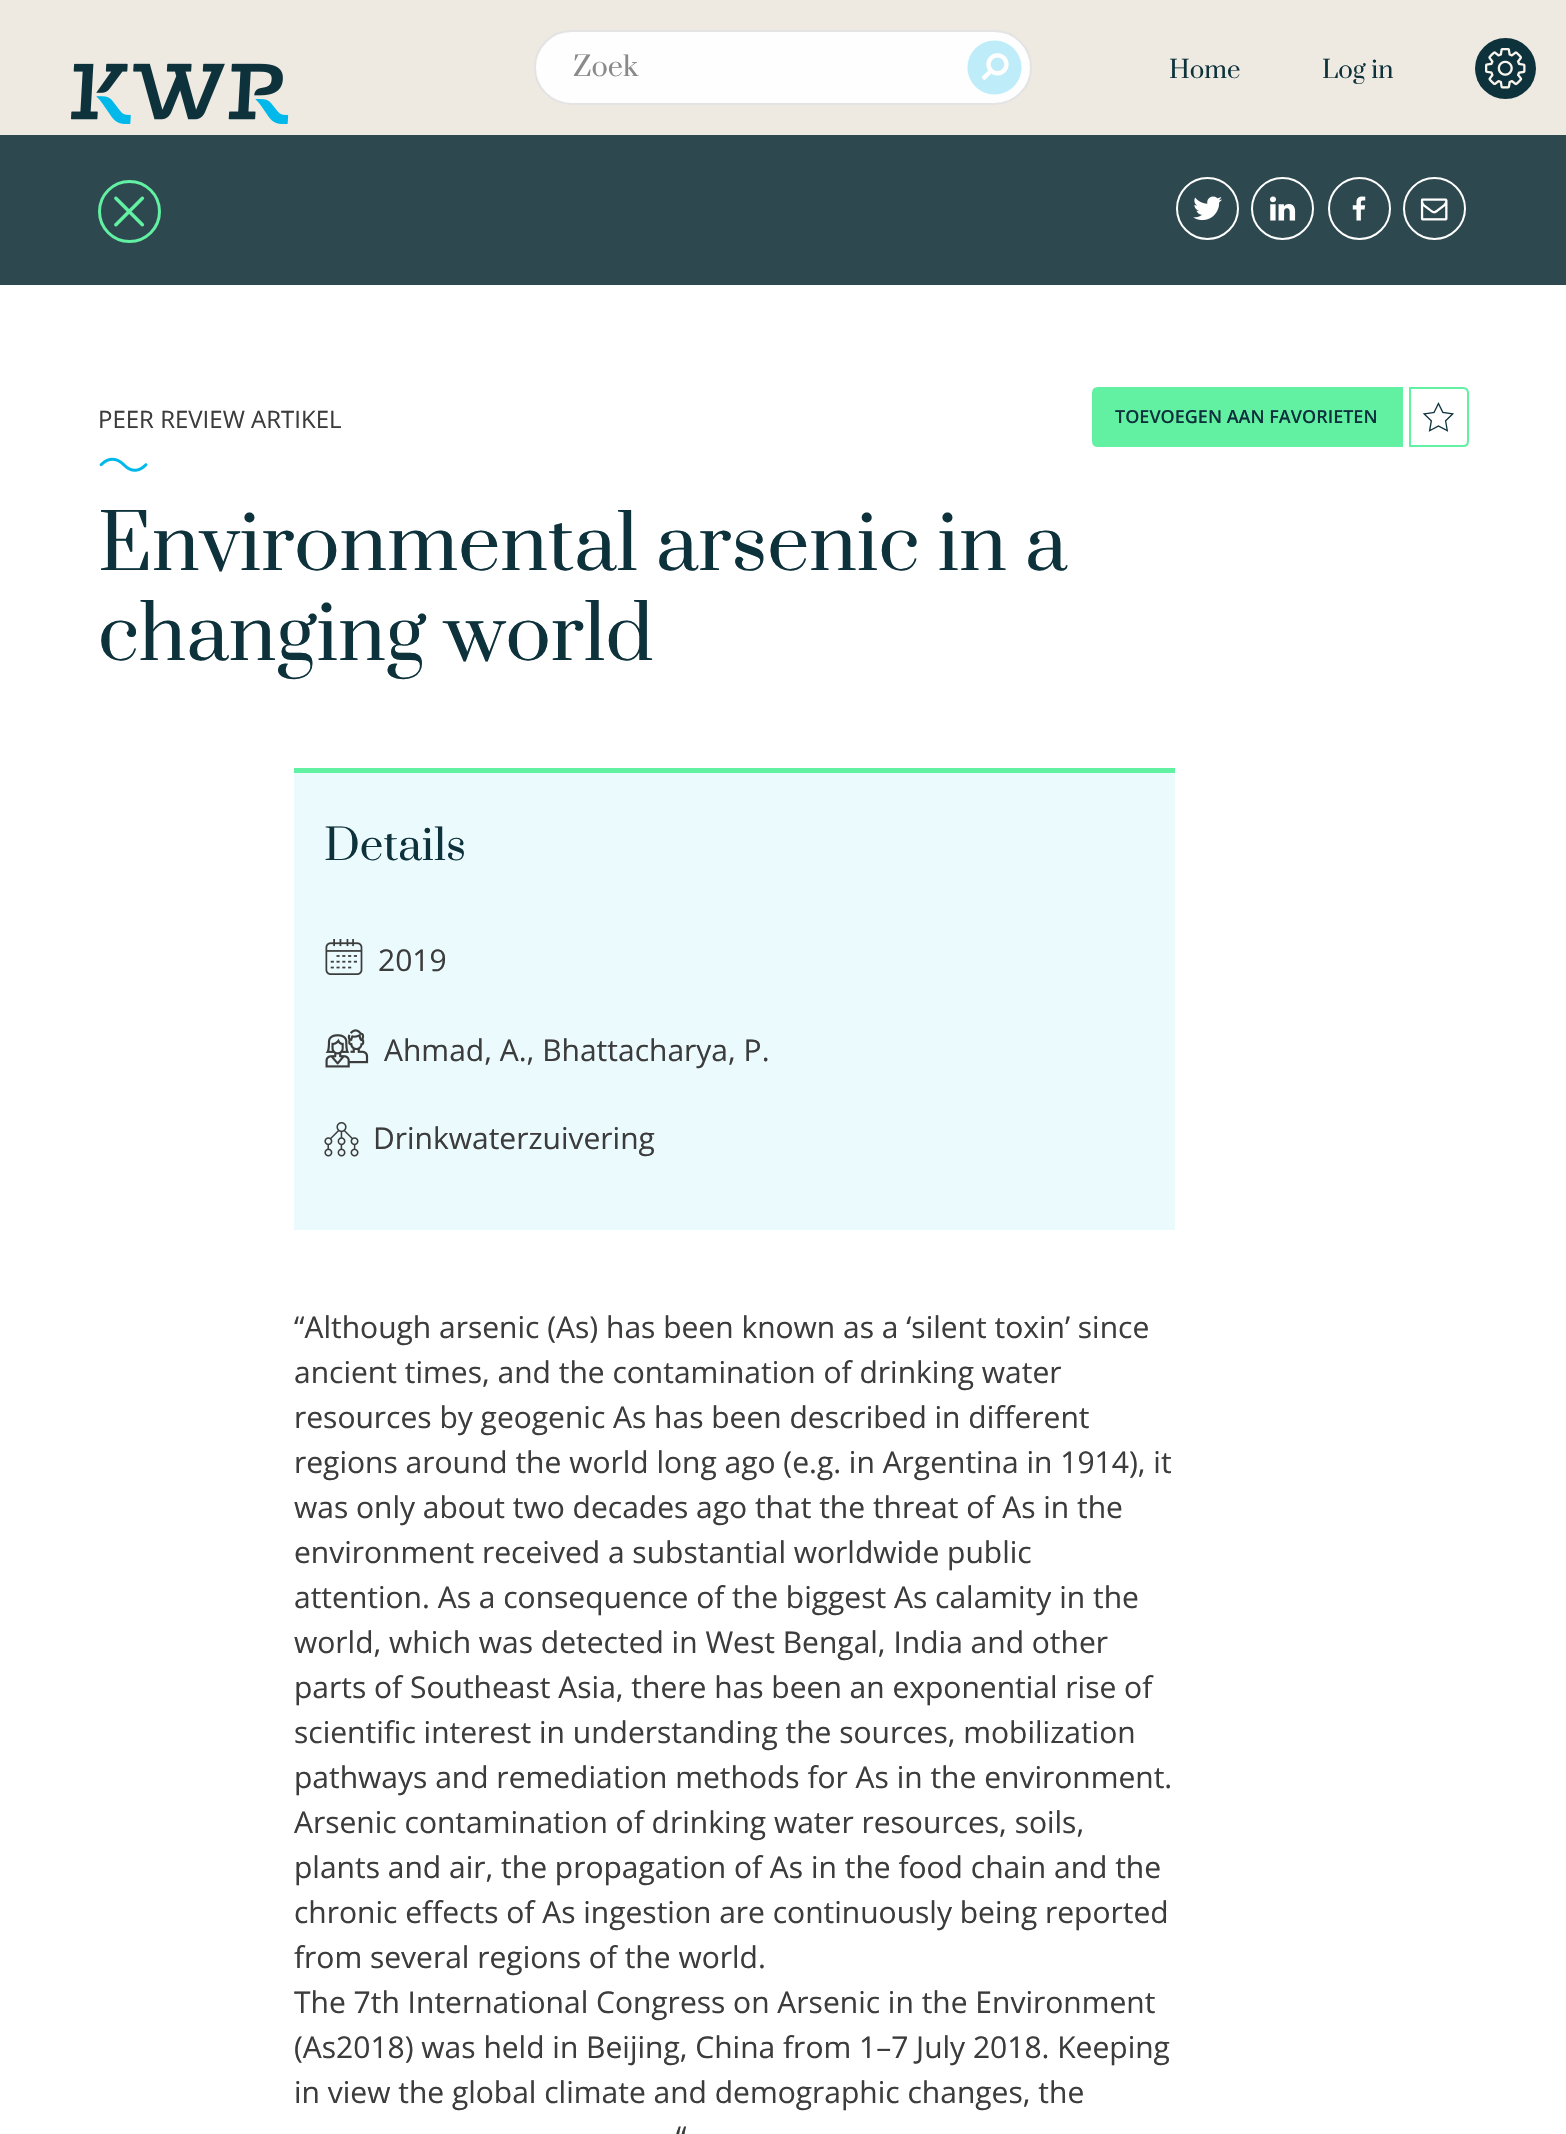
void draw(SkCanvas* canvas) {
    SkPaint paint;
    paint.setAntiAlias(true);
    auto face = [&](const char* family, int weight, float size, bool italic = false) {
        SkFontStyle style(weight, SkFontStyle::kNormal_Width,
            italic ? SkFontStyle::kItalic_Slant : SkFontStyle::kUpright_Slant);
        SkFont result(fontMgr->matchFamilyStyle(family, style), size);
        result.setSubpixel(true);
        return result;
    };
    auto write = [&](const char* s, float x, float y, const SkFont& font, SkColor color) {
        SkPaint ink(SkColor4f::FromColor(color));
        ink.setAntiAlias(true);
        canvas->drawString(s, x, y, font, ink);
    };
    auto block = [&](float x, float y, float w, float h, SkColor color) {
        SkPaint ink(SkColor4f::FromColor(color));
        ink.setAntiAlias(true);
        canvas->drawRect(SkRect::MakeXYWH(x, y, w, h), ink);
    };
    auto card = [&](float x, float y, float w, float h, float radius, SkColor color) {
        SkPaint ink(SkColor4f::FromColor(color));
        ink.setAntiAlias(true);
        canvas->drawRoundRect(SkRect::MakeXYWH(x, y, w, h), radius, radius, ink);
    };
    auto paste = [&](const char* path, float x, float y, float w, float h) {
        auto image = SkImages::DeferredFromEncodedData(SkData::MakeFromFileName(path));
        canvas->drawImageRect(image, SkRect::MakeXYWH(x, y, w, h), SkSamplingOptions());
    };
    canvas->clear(SkColorSetRGB(249, 245, 237));
    block(0, 0, 1566, 135, SkColorSetRGB(238, 234, 226));
    card(534, 30, 498, 75, 37.5f, SkColorSetRGB(254, 254, 254));
    paint.setStyle(SkPaint::kStroke_Style);
    paint.setStrokeWidth(2);
    paint.setColor(SkColorSetARGB(26, 0, 0, 0));
    canvas->drawRoundRect(SkRect::MakeXYWH(535, 31, 496, 73), 36.5f, 36.5f, paint);
    auto kFont1 = face("Prata", 400, 27);
    write("Zoek", 573, 76, kFont1, SkColorSetRGB(138, 138, 138));
    paste("pic1.png", 967, 40, 55, 55);
    auto kFont2 = face("Prata", 400, 24);
    write("Home", 1169, 78, kFont2, SkColorSetRGB(14, 50, 59));
    write("Log in", 1322, 78, kFont2, SkColorSetRGB(14, 50, 59));
    paint.setStyle(SkPaint::kFill_Style);
    paint.setColor(SkColorSetRGB(14, 50, 59));
    canvas->drawCircle(1505.5f, 68.5f, 30.5f, paint);
    paste("pic2.png", 1485, 48, 41, 41);
    paint.setColor(SkColorSetRGB(238, 234, 226));
    canvas->drawPath(SkPathBuilder().moveTo(-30, 176).lineTo(-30, 111).lineTo(607, 111).lineTo(608, 133).lineTo(372, 133).cubicTo(361, 133, 358, 138, 351, 146).lineTo(340, 161).cubicTo(334, 169, 329, 176, 312, 176).close().detach(), paint);
    paste("pic3.png", 71, 63, 218, 62);
    block(0, 135, 1566, 150, SkColorSetARGB(242, 34, 63, 70));
    paint.setStyle(SkPaint::kStroke_Style);
    paint.setStrokeWidth(3);
    paint.setColor(SkColorSetRGB(98, 240, 162));
    canvas->drawCircle(129.5f, 211.5f, 30, paint);
    paste("pic4.png", 114, 196, 31, 31);
    paint.setStrokeWidth(2);
    paint.setColor(SK_ColorWHITE);
    canvas->drawCircle(1207.5f, 208.5f, 30.5f, paint);
    paste("pic5.png", 1193, 196, 29, 25);
    canvas->drawCircle(1282.5f, 208.5f, 30.5f, paint);
    paste("pic6.png", 1270, 196, 26, 25);
    canvas->drawCircle(1359.5f, 208.5f, 30.5f, paint);
    paste("pic7.png", 1352, 196, 14, 25);
    canvas->drawCircle(1434.5f, 208.5f, 30.5f, paint);
    paste("pic8.png", 1420, 198, 28, 23);
    block(0, 285, 1566, 1849, SK_ColorWHITE);
    auto kFont3 = face("Open Sans", 400, 24);
    write("PEER REVIEW ARTIKEL", 98, 428, kFont3, SkColorSetRGB(60, 60, 60));
    paste("pic9.png", 99, 457, 49, 15);
    paint.setStyle(SkPaint::kFill_Style);
    paint.setColor(SkColorSetRGB(98, 240, 162));
    canvas->drawPath(SkPathBuilder().moveTo(1098, 388).lineTo(1402, 388).lineTo(1402, 446).lineTo(1098, 446).cubicTo(1095, 446, 1093, 444, 1093, 441).lineTo(1093, 393).cubicTo(1093, 390, 1095, 388, 1098, 388).close().detach(), paint);
    paint.setStyle(SkPaint::kStroke_Style);
    canvas->drawPath(SkPathBuilder().moveTo(1098, 388).lineTo(1402, 388).lineTo(1402, 446).lineTo(1098, 446).cubicTo(1095, 446, 1093, 444, 1093, 441).lineTo(1093, 393).cubicTo(1093, 390, 1095, 388, 1098, 388).close().detach(), paint);
    auto kFont4 = face("Open Sans", 600, 18);
    write("TOEVOEGEN AAN FAVORIETEN", 1115, 423, kFont4, SkColorSetRGB(14, 50, 59));
    canvas->drawPath(SkPathBuilder().moveTo(1410, 388).lineTo(1463, 388).cubicTo(1466, 388, 1468, 390, 1468, 393).lineTo(1468, 441).cubicTo(1468, 444, 1466, 446, 1463, 446).lineTo(1410, 446).close().detach(), paint);
    paste("pic10.png", 1422, 402, 32, 30);
    auto kFont5 = face("Prata", 400, 75);
    write("Environmental arsenic in a", 98, 570, kFont5, SkColorSetRGB(14, 50, 59));
    write("changing world", 98, 660, kFont5, SkColorSetRGB(14, 50, 59));
    block(294, 773, 881, 457, SkColorSetRGB(235, 250, 253));
    block(294, 768, 881, 5, SkColorSetRGB(98, 240, 162));
    auto kFont6 = face("Prata", 400, 42);
    write("Details", 324, 860, kFont6, SkColorSetRGB(14, 50, 59));
    paste("pic11.png", 325, 939, 38, 36);
    auto kFont7 = face("Open Sans", 400, 30);
    write("2019", 378, 971, kFont7, SkColorSetRGB(60, 60, 60));
    paste("pic12.png", 325, 1029, 44, 39);
    write("Ahmad, A., Bhattacharya, P.", 384, 1061, kFont7, SkColorSetRGB(60, 60, 60));
    paste("pic13.png", 324, 1122, 35, 35);
    write("Drinkwaterzuivering", 373, 1149, kFont7, SkColorSetRGB(60, 60, 60));
    write("“Although arsenic (As) has been known as a ‘silent toxin’ since", 294, 1338, kFont7, SkColorSetRGB(60, 60, 60));
    write("ancient times, and the contamination of drinking water", 294, 1383, kFont7, SkColorSetRGB(60, 60, 60));
    write("resources by geogenic As has been described in different", 294, 1428, kFont7, SkColorSetRGB(60, 60, 60));
    write("regions around the world long ago (e.g. in Argentina in 1914), it", 294, 1473, kFont7, SkColorSetRGB(60, 60, 60));
    write("was only about two decades ago that the threat of As in the", 294, 1518, kFont7, SkColorSetRGB(60, 60, 60));
    write("environment received a substantial worldwide public", 294, 1563, kFont7, SkColorSetRGB(60, 60, 60));
    write("attention. As a consequence of the biggest As calamity in the", 294, 1608, kFont7, SkColorSetRGB(60, 60, 60));
    write("world, which was detected in West Bengal, India and other", 294, 1653, kFont7, SkColorSetRGB(60, 60, 60));
    write("parts of Southeast Asia, there has been an exponential rise of", 294, 1698, kFont7, SkColorSetRGB(60, 60, 60));
    write("scientific interest in understanding the sources, mobilization", 294, 1743, kFont7, SkColorSetRGB(60, 60, 60));
    write("pathways and remediation methods for As in the environment.", 294, 1788, kFont7, SkColorSetRGB(60, 60, 60));
    write("Arsenic contamination of drinking water resources, soils,", 294, 1833, kFont7, SkColorSetRGB(60, 60, 60));
    write("plants and air, the propagation of As in the food chain and the", 294, 1878, kFont7, SkColorSetRGB(60, 60, 60));
    write("chronic effects of As ingestion are continuously being reported", 294, 1923, kFont7, SkColorSetRGB(60, 60, 60));
    write("from several regions of the world.", 294, 1968, kFont7, SkColorSetRGB(60, 60, 60));
    write("The 7th International Congress on Arsenic in the Environment", 294, 2013, kFont7, SkColorSetRGB(60, 60, 60));
    write("(As2018) was held in Beijing, China from 1–7 July 2018. Keeping", 294, 2058, kFont7, SkColorSetRGB(60, 60, 60));
    write("in view the global climate and demographic changes, the", 294, 2103, kFont7, SkColorSetRGB(60, 60, 60));
    write("“", 676, 2148, kFont7, SkColorSetRGB(60, 60, 60));
}
